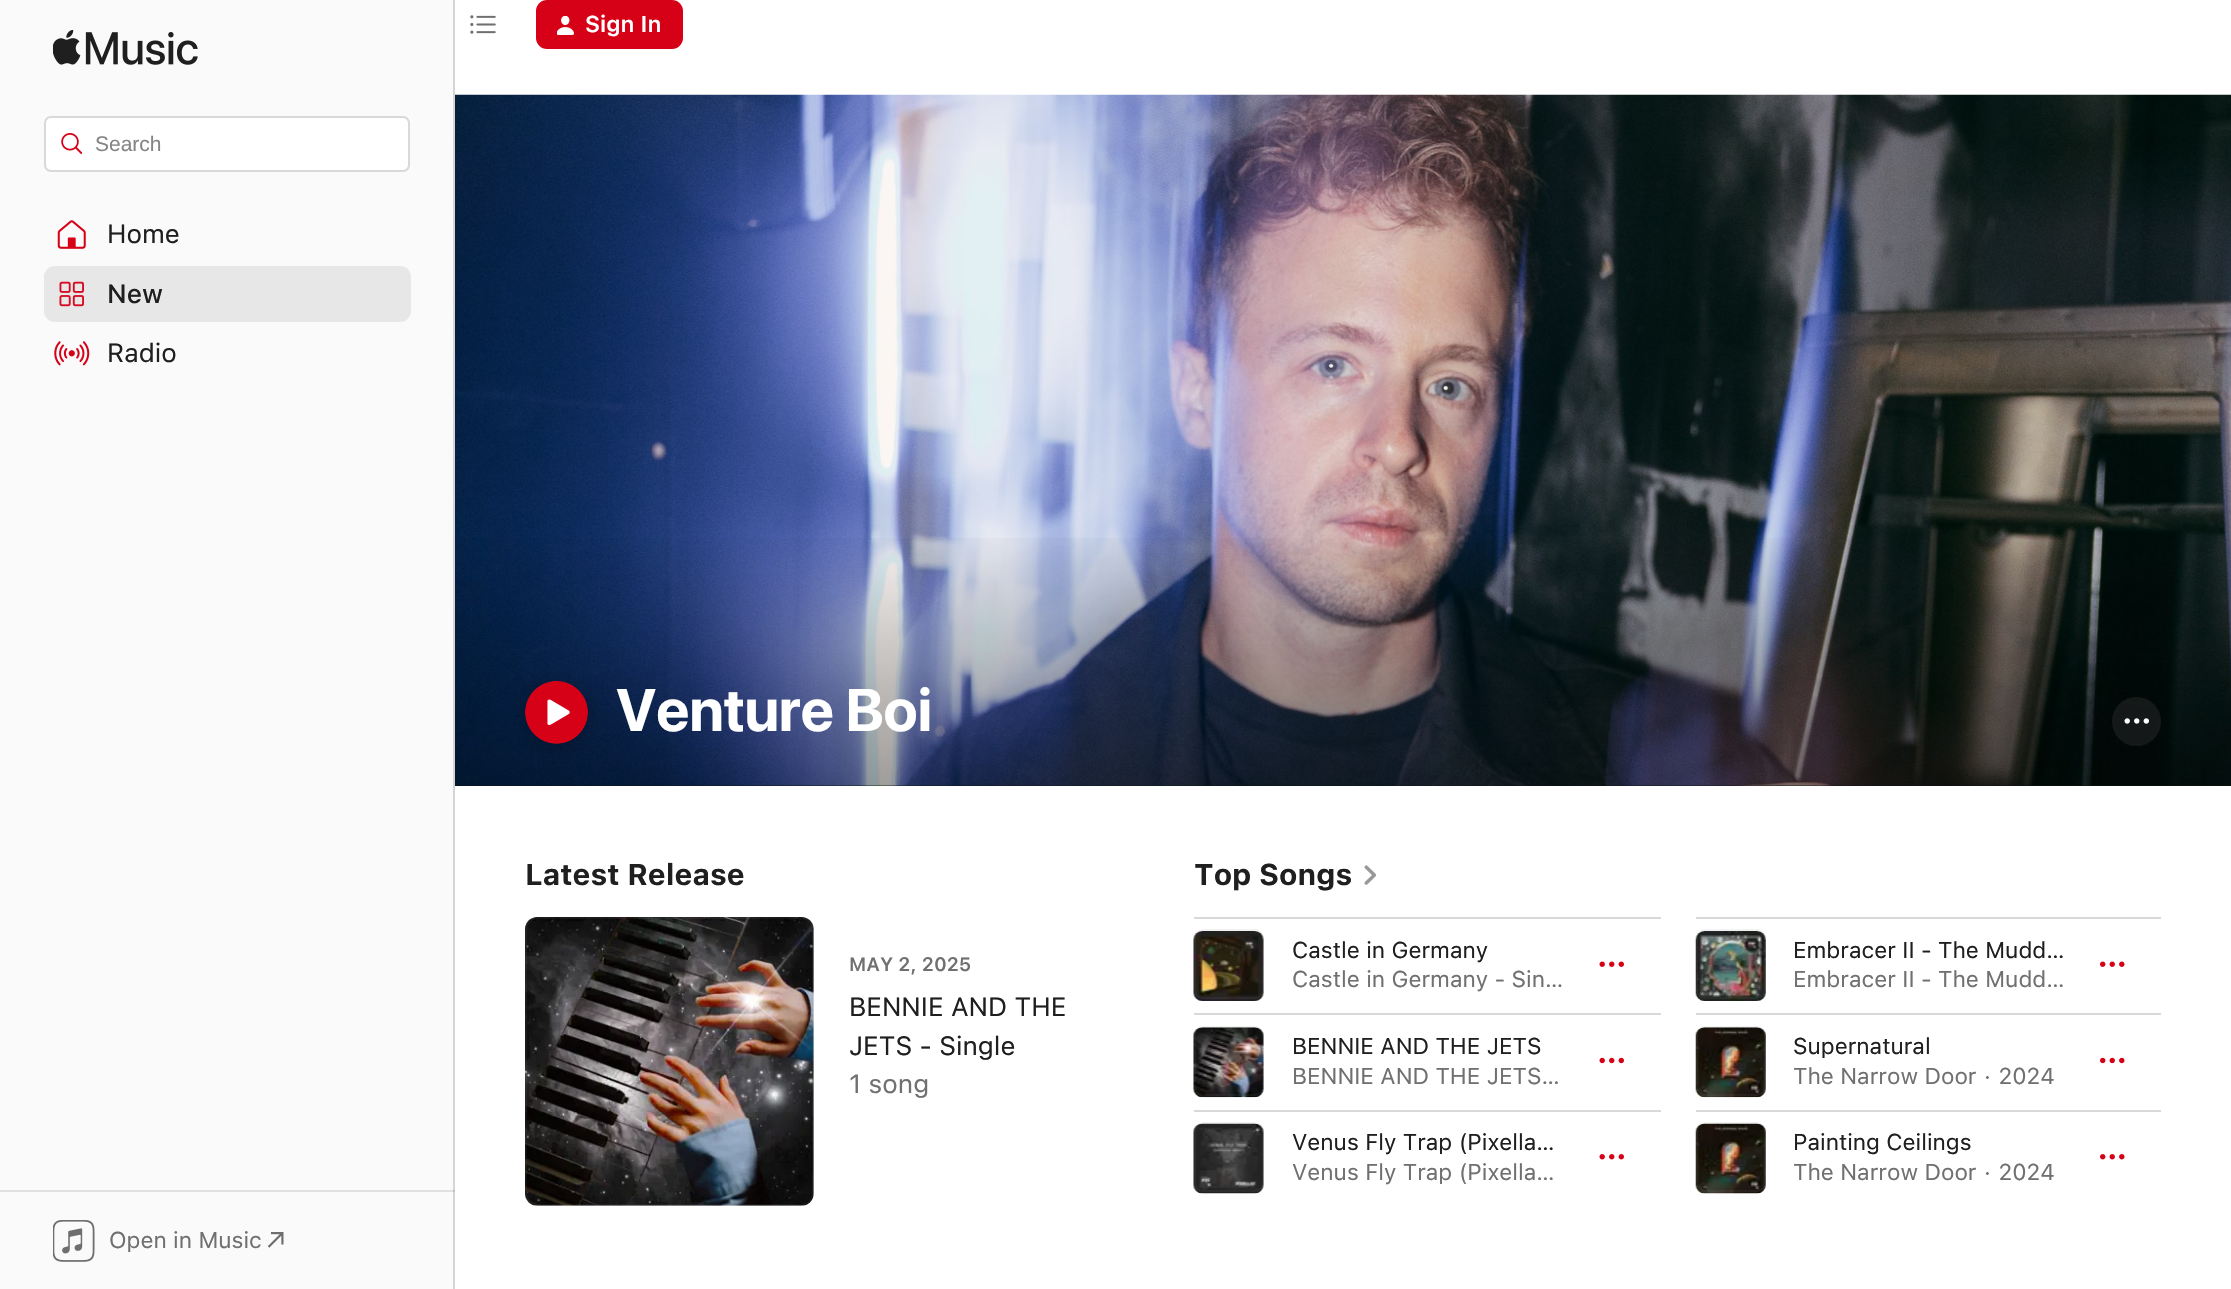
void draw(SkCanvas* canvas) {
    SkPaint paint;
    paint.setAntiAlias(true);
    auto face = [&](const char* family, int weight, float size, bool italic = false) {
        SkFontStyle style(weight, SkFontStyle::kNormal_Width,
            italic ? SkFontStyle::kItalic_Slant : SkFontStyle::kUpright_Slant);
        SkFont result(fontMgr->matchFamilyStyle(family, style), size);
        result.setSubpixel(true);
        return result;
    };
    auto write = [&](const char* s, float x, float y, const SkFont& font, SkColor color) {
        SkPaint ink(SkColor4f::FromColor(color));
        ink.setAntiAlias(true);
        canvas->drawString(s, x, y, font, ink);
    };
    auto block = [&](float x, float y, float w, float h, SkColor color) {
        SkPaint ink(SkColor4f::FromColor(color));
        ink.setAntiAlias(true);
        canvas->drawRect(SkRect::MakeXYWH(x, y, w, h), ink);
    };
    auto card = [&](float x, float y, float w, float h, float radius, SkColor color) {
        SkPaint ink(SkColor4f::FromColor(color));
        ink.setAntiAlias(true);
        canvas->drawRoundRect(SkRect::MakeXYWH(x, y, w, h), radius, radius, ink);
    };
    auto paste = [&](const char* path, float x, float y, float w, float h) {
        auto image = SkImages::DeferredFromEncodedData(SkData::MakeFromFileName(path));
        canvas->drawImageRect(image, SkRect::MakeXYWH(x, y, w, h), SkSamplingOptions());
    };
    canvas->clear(SK_ColorWHITE);
    paste("pic1.png", 470, 15, 26, 19);
    card(536, 0, 147, 49, 11, SkColorSetRGB(214, 0, 23));
    paste("pic2.png", 557, 16, 17, 19);
    auto kFont1 = face("SF", 600, 22.75f);
    write("Sign In", 585, 32, kFont1, SK_ColorWHITE);
    block(0, 0, 453, 1289, SkColorSetRGB(250, 250, 250));
    block(0, 1190, 455, 2, SkColorSetRGB(225, 225, 225));
    block(453, 0, 2, 1289, SkColorSetRGB(213, 213, 213));
    block(453, 1190, 2, 2, SkColorSetRGB(192, 192, 192));
    paste("pic3.png", 53, 30, 145, 35);
    paint.setColor(SK_ColorWHITE);
    canvas->drawRoundRect(SkRect::MakeXYWH(45, 117, 364, 54), 6, 6, paint);
    paint.setStyle(SkPaint::kStroke_Style);
    paint.setStrokeWidth(2);
    paint.setColor(SkColorSetRGB(217, 217, 217));
    canvas->drawRoundRect(SkRect::MakeXYWH(45, 117, 364, 54), 6, 6, paint);
    paste("pic4.png", 61, 133, 21, 21);
    auto kFont2 = face("Liberation Sans", 400, 21);
    write("Search", 95, 151, kFont2, SkColorSetRGB(133, 133, 133));
    paste("pic5.png", 57, 220, 29, 29);
    auto kFont3 = face("SF", 400, 26.25f);
    write("Home", 107, 243, kFont3, SkColorSetRGB(31, 31, 31));
    card(44, 266, 367, 56, 11, SkColorSetRGB(231, 231, 232));
    paste("pic6.png", 59, 281, 25, 26);
    auto kFont4 = face("SF", 500, 26.25f);
    write("New", 107, 303, kFont4, SkColorSetRGB(31, 31, 31));
    paste("pic7.png", 54, 341, 36, 25);
    write("Radio", 107, 362, kFont3, SkColorSetRGB(31, 31, 31));
    paste("pic8.png", 53, 1220, 42, 42);
    auto kFont5 = face("SF", 400, 22.75f);
    write("Open in Music", 109, 1248, kFont5, SkColorSetRGB(112, 112, 112));
    paste("pic9.png", 268, 1232, 16, 16);
    block(455, 785, 1776, 1, SkColorSetRGB(23, 33, 33));
    paste("pic10.png", 455, 94, 1776, 692);
    paint.setStyle(SkPaint::kFill_Style);
    {
        const SkColor colors[] = {SkColorSetARGB(92, 0, 0, 0), SkColorSetARGB(64, 0, 0, 0), SkColorSetARGB(0, 0, 0, 0)};
        const float stops[] = {0, 0.36f, 1};
        const SkPoint ends[] = {{1343, 786}, {1343, 523}};
        paint.setShader(SkGradientShader::MakeLinear(ends, colors, stops, 3, SkTileMode::kClamp));
        paint.setAlpha(255);
    }
    canvas->drawRect(SkRect::MakeXYWH(455, 538, 1776, 248), paint);
    paint.setShader(nullptr);
    paint.setColor(SkColorSetARGB(51, 0, 0, 0));
    paint.setMaskFilter(SkMaskFilter::MakeBlur(kNormal_SkBlurStyle, 9));
    canvas->drawRoundRect(SkRect::MakeXYWH(525, 684, 63, 63), 31.5f, 31.5f, paint);
    paint.setMaskFilter(nullptr);
    paste("pic11.png", 525, 681, 63, 63);
    auto kFont6 = face("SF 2", 700, 59.5f);
    write("Venture Boi", 616, 731, kFont6, SK_ColorWHITE);
    paint.setColor(SkColorSetARGB(128, 40, 40, 40));
    canvas->drawCircle(2136.5f, 721.5f, 24.5f, paint);
    paste("pic12.png", 2124, 718, 25, 6);
    auto kFont7 = face("SF", 700, 29.75f);
    write("Latest Release", 525, 885, kFont7, SkColorSetRGB(31, 31, 31));
    paste("pic13.png", 525, 917, 289, 289);
    paint.setStyle(SkPaint::kStroke_Style);
    paint.setColor(SkColorSetARGB(26, 128, 128, 128));
    canvas->drawRoundRect(SkRect::MakeXYWH(526, 918, 287, 287), 11, 11, paint);
    auto kFont8 = face("SF", 600, 19.25f);
    write("MAY 2, 2025", 849, 971, kFont8, SkColorSetRGB(112, 112, 112));
    write("BENNIE AND THE", 849, 1016, kFont3, SkColorSetRGB(31, 31, 31));
    write("JETS - Single", 849, 1055, kFont3, SkColorSetRGB(31, 31, 31));
    write("1 song", 849, 1093, kFont3, SkColorSetRGB(112, 112, 112));
    write("Top Songs", 1194, 885, kFont7, SkColorSetRGB(31, 31, 31));
    paste("pic14.png", 1364, 865, 12, 20);
    block(1194, 917, 467, 2, SkColorSetRGB(217, 217, 217));
    paste("pic15.png", 1193, 931, 71, 70);
    canvas->drawRoundRect(SkRect::MakeXYWH(1195, 930, 68, 68), 8, 8, paint);
    write("Castle in Germany", 1292, 958, kFont5, SkColorSetRGB(31, 31, 31));
    write("Castle in Germany - Sin…", 1292, 987, kFont5, SkColorSetRGB(112, 112, 112));
    paste("pic16.png", 1599, 961, 25, 6);
    block(1696, 917, 465, 2, SkColorSetRGB(217, 217, 217));
    paste("pic17.png", 1695, 931, 71, 70);
    canvas->drawRoundRect(SkRect::MakeXYWH(1697, 930, 68, 68), 8, 8, paint);
    write("Embracer II - The Mudd…", 1793, 958, kFont5, SkColorSetRGB(31, 31, 31));
    write("Embracer II - The Mudd…", 1793, 987, kFont5, SkColorSetRGB(112, 112, 112));
    paste("pic18.png", 2100, 961, 25, 6);
    block(1194, 1013, 467, 2, SkColorSetRGB(217, 217, 217));
    paste("pic19.png", 1193, 1027, 71, 71);
    canvas->drawRoundRect(SkRect::MakeXYWH(1195, 1027, 68, 68), 8, 8, paint);
    write("BENNIE AND THE JETS", 1292, 1054, kFont5, SkColorSetRGB(31, 31, 31));
    write("BENNIE AND THE JETS…", 1292, 1084, kFont5, SkColorSetRGB(112, 112, 112));
    paste("pic20.png", 1599, 1057, 25, 7);
    block(1696, 1013, 465, 2, SkColorSetRGB(217, 217, 217));
    paste("pic21.png", 1695, 1027, 71, 71);
    canvas->drawRoundRect(SkRect::MakeXYWH(1697, 1027, 68, 68), 8, 8, paint);
    write("Supernatural", 1793, 1054, kFont5, SkColorSetRGB(31, 31, 31));
    write("The Narrow Door · 2024", 1793, 1084, kFont5, SkColorSetRGB(112, 112, 112));
    paste("pic22.png", 2100, 1057, 25, 7);
    block(1194, 1110, 467, 2, SkColorSetRGB(217, 217, 217));
    paste("pic23.png", 1193, 1123, 71, 71);
    canvas->drawRoundRect(SkRect::MakeXYWH(1195, 1123, 68, 68), 8, 8, paint);
    write("Venus Fly Trap (Pixella…", 1292, 1150, kFont5, SkColorSetRGB(31, 31, 31));
    write("Venus Fly Trap (Pixella…", 1292, 1180, kFont5, SkColorSetRGB(112, 112, 112));
    paste("pic24.png", 1599, 1154, 25, 6);
    block(1696, 1110, 465, 2, SkColorSetRGB(217, 217, 217));
    paste("pic25.png", 1695, 1123, 71, 71);
    canvas->drawRoundRect(SkRect::MakeXYWH(1697, 1123, 68, 68), 8, 8, paint);
    write("Painting Ceilings", 1793, 1150, kFont5, SkColorSetRGB(31, 31, 31));
    write("The Narrow Door · 2024", 1793, 1180, kFont5, SkColorSetRGB(112, 112, 112));
    paste("pic26.png", 2100, 1154, 25, 6);
}
